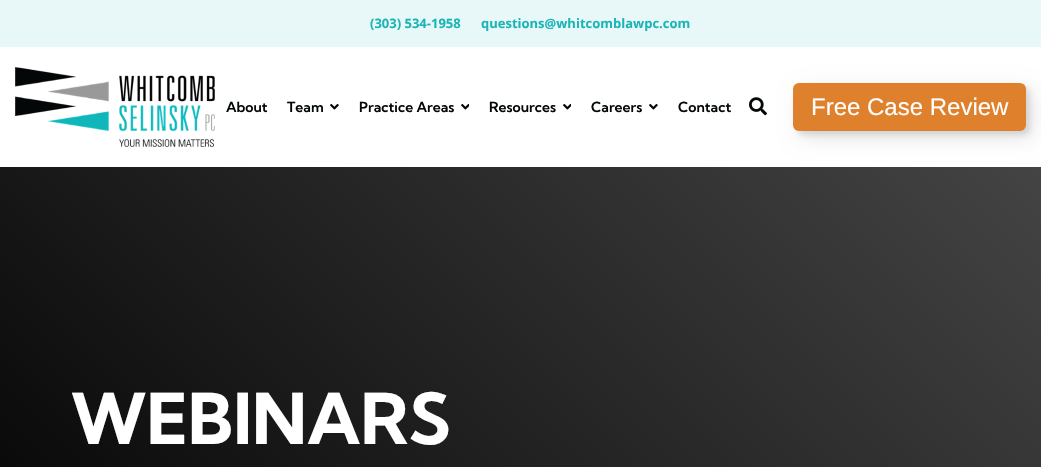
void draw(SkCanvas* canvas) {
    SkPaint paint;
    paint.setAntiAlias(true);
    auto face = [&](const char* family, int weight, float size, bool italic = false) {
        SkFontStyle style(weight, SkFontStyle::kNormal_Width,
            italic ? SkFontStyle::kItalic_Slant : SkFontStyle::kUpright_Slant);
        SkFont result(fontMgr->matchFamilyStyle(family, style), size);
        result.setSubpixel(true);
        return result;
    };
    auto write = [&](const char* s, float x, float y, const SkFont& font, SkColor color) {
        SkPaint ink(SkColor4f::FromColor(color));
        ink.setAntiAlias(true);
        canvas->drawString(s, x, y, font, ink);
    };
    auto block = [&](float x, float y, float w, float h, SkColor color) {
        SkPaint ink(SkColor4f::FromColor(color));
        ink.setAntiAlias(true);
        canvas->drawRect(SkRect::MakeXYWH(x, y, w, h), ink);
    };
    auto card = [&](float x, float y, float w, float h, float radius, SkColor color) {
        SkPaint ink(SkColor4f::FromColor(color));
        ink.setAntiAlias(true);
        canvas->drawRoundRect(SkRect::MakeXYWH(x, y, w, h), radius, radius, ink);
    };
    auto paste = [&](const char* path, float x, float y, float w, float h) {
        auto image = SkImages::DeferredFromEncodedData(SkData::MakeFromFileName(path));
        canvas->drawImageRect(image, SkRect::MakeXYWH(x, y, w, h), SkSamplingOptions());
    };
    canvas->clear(SK_ColorWHITE);
    block(0, 0, 1041, 47, SkColorSetRGB(232, 248, 248));
    auto kFont1 = face("Open Sans", 700, 13);
    write("(303) 534-1958", 370, 28, kFont1, SkColorSetRGB(27, 181, 183));
    write("questions@whitcomblawpc.com", 481, 28, kFont1, SkColorSetRGB(27, 181, 183));
    paste("pic1.png", 15, 67, 200, 80);
    auto kFont2 = face("Kumbh Sans", 600, 14);
    write("About", 226, 112, kFont2, SkColorSetRGB(4, 7, 7));
    write("Team", 287, 112, kFont2, SkColorSetRGB(4, 7, 7));
    paste("pic2.png", 330, 104, 9, 6);
    write("Practice Areas", 359, 112, kFont2, SkColorSetRGB(4, 7, 7));
    paste("pic3.png", 461, 104, 8, 6);
    write("Resources", 489, 112, kFont2, SkColorSetRGB(4, 7, 7));
    paste("pic3.png", 563, 104, 8, 6);
    write("Careers", 591, 112, kFont2, SkColorSetRGB(4, 7, 7));
    paste("pic2.png", 649, 104, 9, 6);
    write("Contact", 678, 112, kFont2, SkColorSetRGB(4, 7, 7));
    paste("pic4.png", 749, 97, 18, 19);
    paint.setColor(SkColorSetARGB(26, 0, 0, 0));
    paint.setMaskFilter(SkMaskFilter::MakeBlur(kNormal_SkBlurStyle, 2.5f));
    canvas->drawRoundRect(SkRect::MakeXYWH(797, 87, 233, 48), 6, 6, paint);
    paint.setMaskFilter(nullptr);
    {
        const SkColor colors[] = {SK_ColorBLACK, SkColorSetRGB(68, 68, 68)};
        const float stops[] = {0, 1};
        const SkPoint ends[] = {{128, 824}, {913, 39}};
        paint.setShader(SkGradientShader::MakeLinear(ends, colors, stops, 2, SkTileMode::kClamp));
        paint.setAlpha(255);
    }
    canvas->drawRect(SkRect::MakeXYWH(0, 167, 1041, 300), paint);
    paint.setShader(nullptr);
    paint.setColor(SkColorSetARGB(26, 0, 0, 0));
    paint.setMaskFilter(SkMaskFilter::MakeBlur(kNormal_SkBlurStyle, 10));
    canvas->drawRoundRect(SkRect::MakeXYWH(800, 90, 233, 48), 6, 6, paint);
    paint.setMaskFilter(nullptr);
    card(793, 83, 233, 48, 6, SkColorSetRGB(223, 129, 44));
    auto kFont3 = face("Liberation Sans", 400, 24);
    write("Free Case Review", 811, 115, kFont3, SK_ColorWHITE);
    auto kFont4 = face("Kumbh Sans", 700, 70);
    write("WEBINARS", 71, 444, kFont4, SK_ColorWHITE);
}
